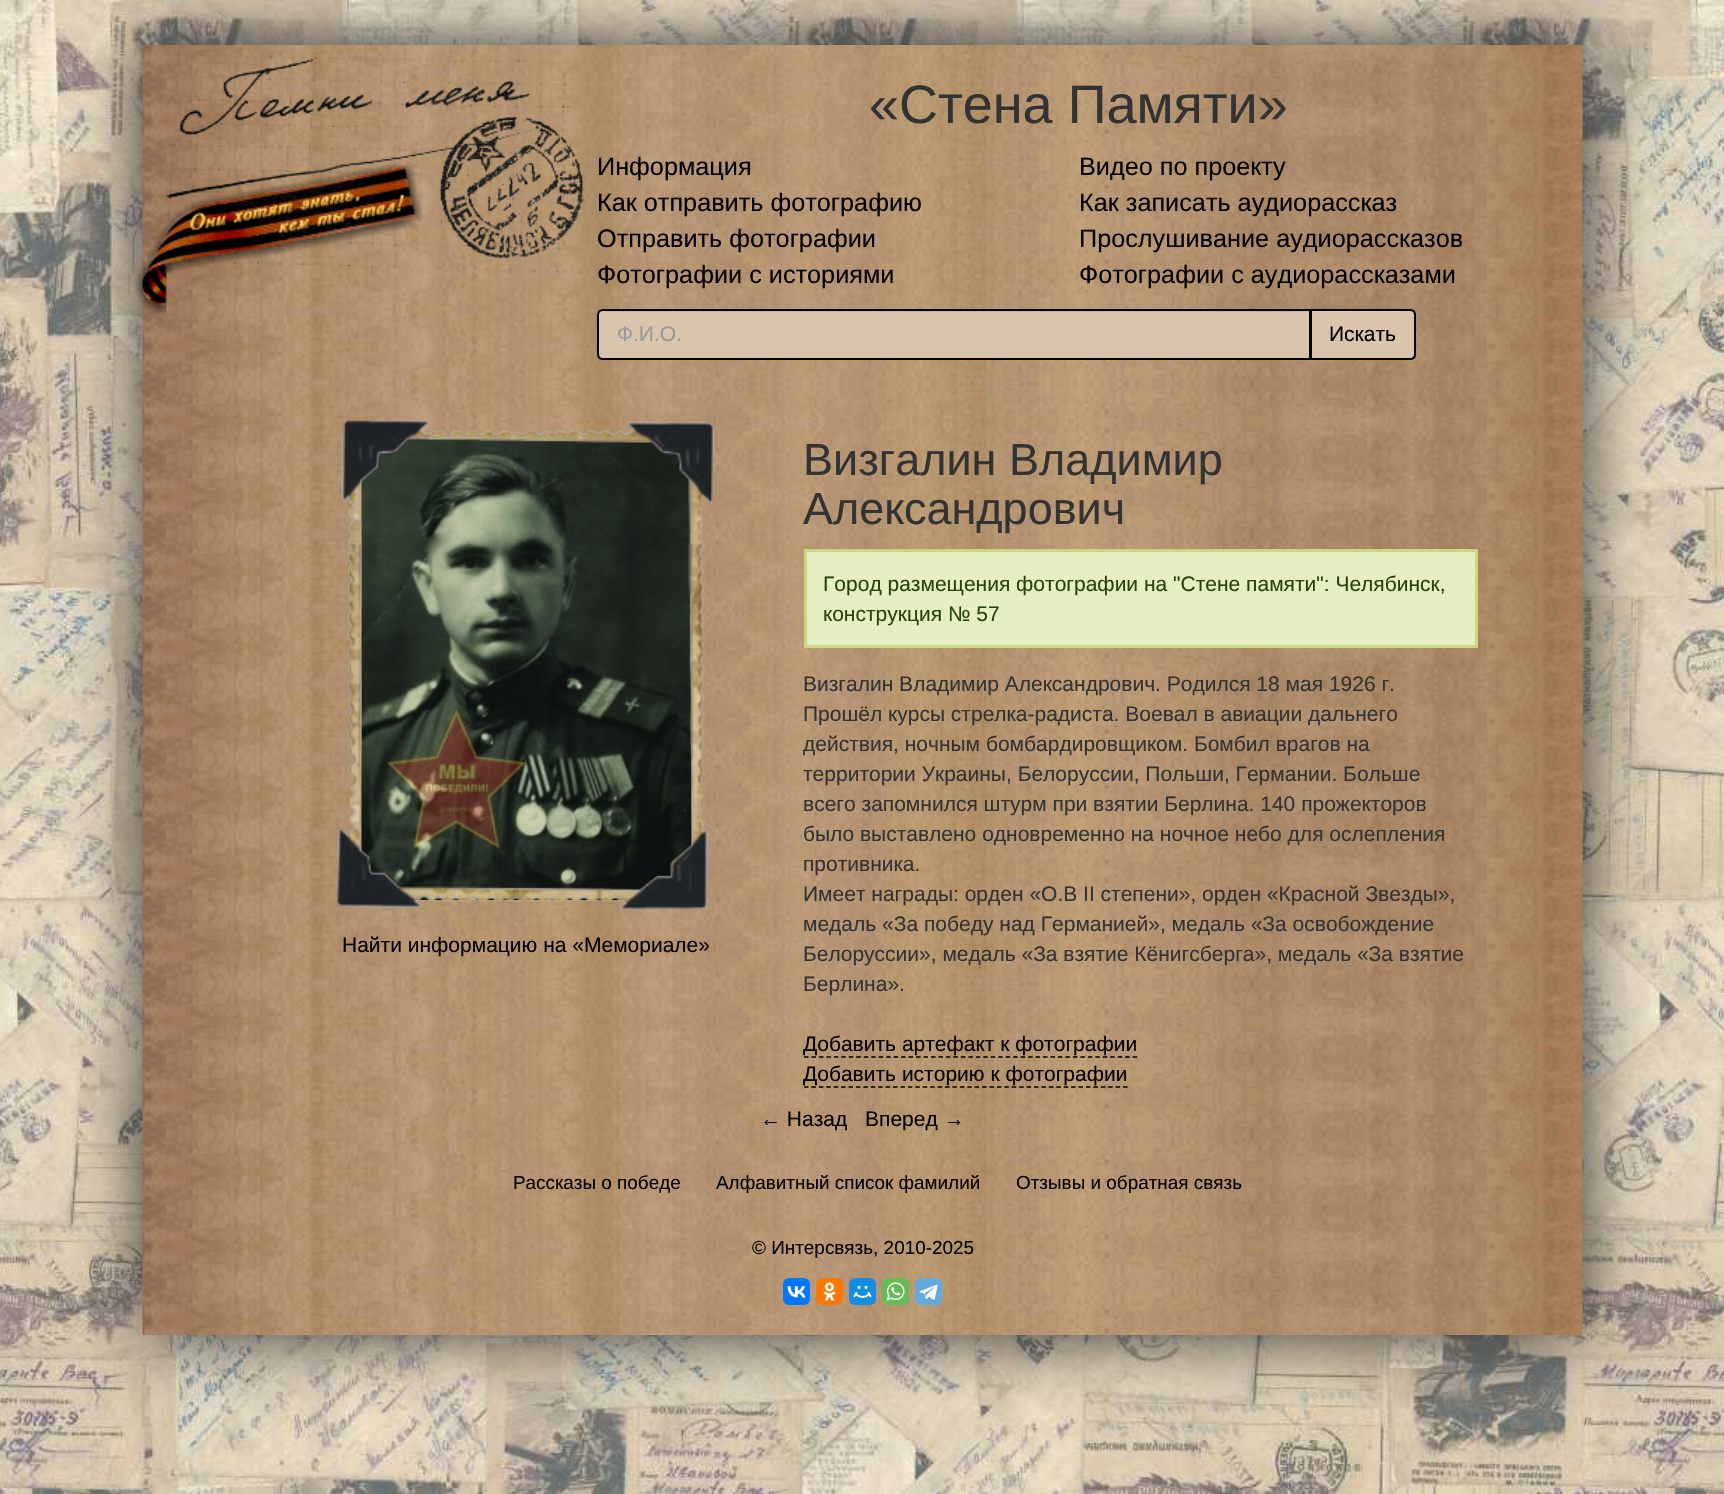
void draw(SkCanvas* canvas) {
    SkPaint paint;
    paint.setAntiAlias(true);
    auto face = [&](const char* family, int weight, float size, bool italic = false) {
        SkFontStyle style(weight, SkFontStyle::kNormal_Width,
            italic ? SkFontStyle::kItalic_Slant : SkFontStyle::kUpright_Slant);
        SkFont result(fontMgr->matchFamilyStyle(family, style), size);
        result.setSubpixel(true);
        return result;
    };
    auto write = [&](const char* s, float x, float y, const SkFont& font, SkColor color) {
        SkPaint ink(SkColor4f::FromColor(color));
        ink.setAntiAlias(true);
        canvas->drawString(s, x, y, font, ink);
    };
    auto card = [&](float x, float y, float w, float h, float radius, SkColor color) {
        SkPaint ink(SkColor4f::FromColor(color));
        ink.setAntiAlias(true);
        canvas->drawRoundRect(SkRect::MakeXYWH(x, y, w, h), radius, radius, ink);
    };
    auto paste = [&](const char* path, float x, float y, float w, float h) {
        auto image = SkImages::DeferredFromEncodedData(SkData::MakeFromFileName(path));
        canvas->drawImageRect(image, SkRect::MakeXYWH(x, y, w, h), SkSamplingOptions());
    };
    canvas->clear(SK_ColorWHITE);
    paste("pic1.png", 0, 0, 1724, 1494);
    paint.setColor(SkColorSetRGB(51, 51, 51));
    paint.setMaskFilter(SkMaskFilter::MakeBlur(kNormal_SkBlurStyle, 33));
    canvas->drawRect(SkRect::MakeXYWH(143, 45, 1440, 1290), paint);
    paint.setMaskFilter(nullptr);
    paste("pic2.png", 142, 45, 1441, 1290);
    paste("pic3.png", 165, 45, 420, 229);
    paste("pic4.png", 135, 161, 288, 153);
    auto kFont1 = face("Liberation Sans", 400, 54);
    write("«Стена Памяти»", 869, 123, kFont1, SkColorSetRGB(51, 51, 51));
    auto kFont2 = face("Liberation Sans", 400, 25.25f);
    write("Информация", 597, 175, kFont2, SK_ColorBLACK);
    write("Видео по проекту", 1079, 175, kFont2, SK_ColorBLACK);
    write("Как отправить фотографию", 597, 211, kFont2, SK_ColorBLACK);
    write("Как записать аудиорассказ", 1079, 211, kFont2, SK_ColorBLACK);
    write("Отправить фотографии", 597, 247, kFont2, SK_ColorBLACK);
    write("Прослушивание аудиорассказов", 1079, 247, kFont2, SK_ColorBLACK);
    write("Фотографии с историями", 597, 283, kFont2, SK_ColorBLACK);
    write("Фотографии с аудиорассказами", 1079, 283, kFont2, SK_ColorBLACK);
    paint.setColor(SkColorSetRGB(217, 197, 172));
    canvas->drawPath(SkPathBuilder().moveTo(603, 309).lineTo(1311, 309).lineTo(1311, 360).lineTo(603, 360).cubicTo(599.5f, 360, 597, 357.5f, 597, 354).lineTo(597, 315).cubicTo(597, 311.5f, 599.5f, 309, 603, 309).close().detach(), paint);
    paint.setColor(SkColorSetRGB(201, 182, 159));
    canvas->drawPath(SkPathBuilder().moveTo(603, 312).lineTo(1310, 312).lineTo(1310, 311).lineTo(604, 311).cubicTo(602, 311, 601, 312, 600, 313).close().detach(), paint);
    paint.setStyle(SkPaint::kStroke_Style);
    paint.setStrokeWidth(2);
    paint.setColor(SK_ColorBLACK);
    canvas->drawPath(SkPathBuilder().moveTo(603, 310).lineTo(1310, 310).lineTo(1310, 359).lineTo(603, 359).cubicTo(600, 359, 598, 357, 598, 354).lineTo(598, 315).cubicTo(598, 312, 600, 310, 603, 310).close().detach(), paint);
    auto kFont3 = face("Liberation Sans", 400, 21);
    write("Ф.И.О.", 617, 341, kFont3, SkColorSetRGB(153, 153, 153));
    paint.setStyle(SkPaint::kFill_Style);
    paint.setColor(SkColorSetRGB(217, 197, 172));
    canvas->drawPath(SkPathBuilder().moveTo(1311, 310).lineTo(1410, 310).cubicTo(1413, 310, 1415, 312, 1415, 315).lineTo(1415, 354).cubicTo(1415, 357, 1413, 359, 1410, 359).lineTo(1311, 359).close().detach(), paint);
    paint.setStyle(SkPaint::kStroke_Style);
    paint.setColor(SK_ColorBLACK);
    canvas->drawPath(SkPathBuilder().moveTo(1311, 310).lineTo(1410, 310).cubicTo(1413, 310, 1415, 312, 1415, 315).lineTo(1415, 354).cubicTo(1415, 357, 1413, 359, 1410, 359).lineTo(1311, 359).close().detach(), paint);
    write("Искать", 1329, 341, kFont3, SK_ColorBLACK);
    paste("pic6.png", 361, 435, 331, 465);
    paste("pic5.png", 336, 419, 379, 491);
    write("Найти информацию на «Мемориале»", 342, 952, kFont3, SK_ColorBLACK);
    auto kFont4 = face("Liberation Sans", 400, 45);
    write("Визгалин Владимир", 803, 475, kFont4, SkColorSetRGB(51, 51, 51));
    write("Александрович", 803, 524, kFont4, SkColorSetRGB(51, 51, 51));
    paint.setStyle(SkPaint::kFill_Style);
    paint.setColor(SkColorSetRGB(230, 239, 194));
    canvas->drawRect(SkRect::MakeXYWH(805.5f, 550.5f, 671, 96), paint);
    paint.setStyle(SkPaint::kStroke_Style);
    paint.setStrokeWidth(3);
    paint.setColor(SkColorSetRGB(198, 216, 128));
    canvas->drawRect(SkRect::MakeXYWH(805.5f, 550.5f, 671, 96), paint);
    write("Город размещения фотографии на \"Стене памяти\": Челябинск,", 823, 591, kFont3, SkColorSetRGB(38, 68, 9));
    write("конструкция № 57", 823, 621, kFont3, SkColorSetRGB(38, 68, 9));
    write("Визгалин Владимир Александрович. Родился 18 мая 1926 г.", 803, 691, kFont3, SkColorSetRGB(51, 51, 51));
    write("Прошёл курсы стрелка-радиста. Воевал в авиации дальнего", 803, 721, kFont3, SkColorSetRGB(51, 51, 51));
    write("действия, ночным бомбардировщиком. Бомбил врагов на", 803, 751, kFont3, SkColorSetRGB(51, 51, 51));
    write("территории Украины, Белоруссии, Польши, Германии. Больше", 803, 781, kFont3, SkColorSetRGB(51, 51, 51));
    write("всего запомнился штурм при взятии Берлина. 140 прожекторов", 803, 811, kFont3, SkColorSetRGB(51, 51, 51));
    write("было выставлено одновременно на ночное небо для ослепления", 803, 841, kFont3, SkColorSetRGB(51, 51, 51));
    write("противника.", 803, 871, kFont3, SkColorSetRGB(51, 51, 51));
    write("Имеет награды: орден «О.В II степени», орден «Красной Звезды»,", 803, 901, kFont3, SkColorSetRGB(51, 51, 51));
    write("медаль «За победу над Германией», медаль «За освобождение", 803, 931, kFont3, SkColorSetRGB(51, 51, 51));
    write("Белоруссии», медаль «За взятие Кёнигсберга», медаль «За взятие", 803, 961, kFont3, SkColorSetRGB(51, 51, 51));
    write("Берлина».", 803, 991, kFont3, SkColorSetRGB(51, 51, 51));
    write("Добавить артефакт к фотографии", 803, 1051, kFont3, SK_ColorBLACK);
    paint.setStrokeWidth(1.5f);
    paint.setColor(SK_ColorBLACK);
    paint.setPathEffect(SkDashPathEffect::Make({{4.5f, 2.97f}}, 0));
    canvas->drawPath(SkPathBuilder().moveTo(804, 1057).lineTo(1137, 1057).detach(), paint);
    paint.setPathEffect(nullptr);
    write("Добавить историю к фотографии", 803, 1081, kFont3, SK_ColorBLACK);
    paint.setPathEffect(SkDashPathEffect::Make({{4.5f, 2.92f}}, 0));
    canvas->drawPath(SkPathBuilder().moveTo(804, 1087).lineTo(1128, 1087).detach(), paint);
    paint.setPathEffect(nullptr);
    write("← Назад", 760, 1126, kFont3, SK_ColorBLACK);
    write("Вперед →", 865, 1126, kFont3, SK_ColorBLACK);
    auto kFont5 = face("Liberation Sans", 400, 18.9f);
    write("Рассказы о победе", 513, 1189, kFont5, SK_ColorBLACK);
    write("Алфавитный список фамилий", 716, 1189, kFont5, SK_ColorBLACK);
    write("Отзывы и обратная связь", 1016, 1189, kFont5, SK_ColorBLACK);
    write("© Интерсвязь, 2010-2025", 752, 1254, kFont5, SK_ColorBLACK);
    card(783, 1278, 27, 27, 6, SkColorSetRGB(0, 119, 255));
    paste("pic7.png", 787, 1286, 19, 12);
    card(816, 1278, 27, 27, 6, SkColorSetRGB(255, 119, 0));
    paste("pic8.png", 823, 1282, 13, 19);
    card(849, 1278, 27, 27, 6, SkColorSetRGB(22, 141, 226));
    paste("pic9.png", 853, 1285, 19, 13);
    card(882, 1278, 27, 27, 6, SkColorSetRGB(101, 188, 84));
    paste("pic10.png", 886, 1282, 19, 19);
    card(915, 1278, 27, 27, 6, SkColorSetRGB(100, 169, 220));
    paste("pic11.png", 919, 1284, 19, 16);
}
